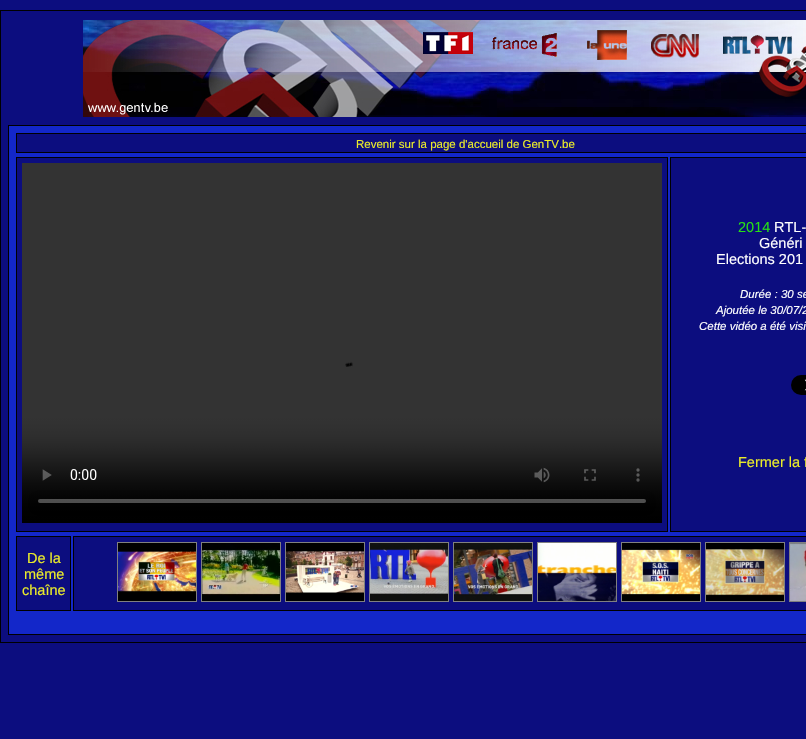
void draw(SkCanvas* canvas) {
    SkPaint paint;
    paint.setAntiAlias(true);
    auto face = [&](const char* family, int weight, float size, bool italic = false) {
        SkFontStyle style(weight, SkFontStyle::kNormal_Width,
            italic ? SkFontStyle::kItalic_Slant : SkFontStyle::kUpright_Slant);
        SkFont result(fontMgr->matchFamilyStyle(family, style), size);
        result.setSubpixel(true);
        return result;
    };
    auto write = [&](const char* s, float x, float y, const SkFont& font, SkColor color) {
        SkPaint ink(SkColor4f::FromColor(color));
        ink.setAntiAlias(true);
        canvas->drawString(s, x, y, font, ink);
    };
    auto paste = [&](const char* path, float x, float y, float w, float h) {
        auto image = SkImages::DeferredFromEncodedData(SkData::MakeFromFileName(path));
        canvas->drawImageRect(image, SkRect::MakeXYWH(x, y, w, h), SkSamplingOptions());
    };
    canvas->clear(SkColorSetRGB(12, 13, 127));
    paint.setStyle(SkPaint::kStroke_Style);
    paint.setStrokeWidth(1);
    paint.setColor(SK_ColorBLACK);
    canvas->drawRect(SkRect::MakeXYWH(0.5f, 10.5f, 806, 632), paint);
    paste("pic1.png", 83, 20, 723, 97);
    paint.setStyle(SkPaint::kFill_Style);
    paint.setColor(SkColorSetRGB(19, 39, 201));
    canvas->drawRect(SkRect::MakeXYWH(8.5f, 125.5f, 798, 509), paint);
    paint.setStyle(SkPaint::kStroke_Style);
    paint.setColor(SK_ColorBLACK);
    canvas->drawRect(SkRect::MakeXYWH(8.5f, 125.5f, 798, 509), paint);
    paint.setStyle(SkPaint::kFill_Style);
    paint.setColor(SkColorSetRGB(12, 13, 127));
    canvas->drawRect(SkRect::MakeXYWH(16.5f, 133.5f, 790, 19), paint);
    paint.setStyle(SkPaint::kStroke_Style);
    paint.setColor(SK_ColorBLACK);
    canvas->drawRect(SkRect::MakeXYWH(16.5f, 133.5f, 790, 19), paint);
    auto kFont1 = face("Liberation Sans", 400, 11.5f);
    write("Revenir sur la page d'accueil de GenTV.be", 356, 148, kFont1, SkColorSetRGB(234, 235, 42));
    paint.setStyle(SkPaint::kFill_Style);
    paint.setColor(SkColorSetRGB(12, 13, 127));
    canvas->drawRect(SkRect::MakeXYWH(16.5f, 157.5f, 651, 374), paint);
    paint.setStyle(SkPaint::kStroke_Style);
    paint.setColor(SK_ColorBLACK);
    canvas->drawRect(SkRect::MakeXYWH(16.5f, 157.5f, 651, 374), paint);
    paste("pic2.png", 22, 163, 640, 360);
    paint.setStyle(SkPaint::kFill_Style);
    paint.setColor(SkColorSetRGB(12, 13, 127));
    canvas->drawRect(SkRect::MakeXYWH(670.5f, 157.5f, 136, 374), paint);
    paint.setStyle(SkPaint::kStroke_Style);
    paint.setColor(SK_ColorBLACK);
    canvas->drawRect(SkRect::MakeXYWH(670.5f, 157.5f, 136, 374), paint);
    auto kFont2 = face("Liberation Sans", 400, 14.5f);
    write("2014", 738, 232, kFont2, SkColorSetRGB(38, 225, 21));
    write("RTL-", 774, 232, kFont2, SK_ColorWHITE);
    write("Généri", 759, 248, kFont2, SK_ColorWHITE);
    write("Elections 201", 716, 264, kFont2, SK_ColorWHITE);
    auto kFont3 = face("Liberation Sans", 400, 11.5f, true);
    write("Durée : 30 se", 740, 298, kFont3, SK_ColorWHITE);
    write("Ajoutée le 30/07/2", 716, 314, kFont3, SK_ColorWHITE);
    write("Cette vidéo a été visi", 699, 330, kFont3, SK_ColorWHITE);
    paste("pic3.png", 791, 375, 15, 20);
    write("Fermer la f", 738, 467, kFont2, SkColorSetRGB(234, 235, 42));
    paint.setStyle(SkPaint::kFill_Style);
    paint.setColor(SkColorSetRGB(12, 13, 127));
    canvas->drawRect(SkRect::MakeXYWH(16.5f, 536.5f, 54, 74), paint);
    paint.setStyle(SkPaint::kStroke_Style);
    paint.setColor(SK_ColorBLACK);
    canvas->drawRect(SkRect::MakeXYWH(16.5f, 536.5f, 54, 74), paint);
    write("De la", 27, 563, kFont2, SkColorSetRGB(234, 235, 42));
    write("même", 24, 579, kFont2, SkColorSetRGB(234, 235, 42));
    write("chaîne", 22, 595, kFont2, SkColorSetRGB(234, 235, 42));
    paint.setStyle(SkPaint::kFill_Style);
    paint.setColor(SkColorSetRGB(12, 13, 127));
    canvas->drawRect(SkRect::MakeXYWH(73.5f, 536.5f, 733, 74), paint);
    paint.setStyle(SkPaint::kStroke_Style);
    paint.setColor(SK_ColorBLACK);
    canvas->drawRect(SkRect::MakeXYWH(73.5f, 536.5f, 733, 74), paint);
    paint.setColor(SkColorSetRGB(128, 128, 128));
    canvas->drawRect(SkRect::MakeXYWH(117.5f, 542.5f, 79, 59), paint);
    canvas->drawRect(SkRect::MakeXYWH(201.5f, 542.5f, 79, 59), paint);
    canvas->drawRect(SkRect::MakeXYWH(285.5f, 542.5f, 79, 59), paint);
    canvas->drawRect(SkRect::MakeXYWH(369.5f, 542.5f, 79, 59), paint);
    canvas->drawRect(SkRect::MakeXYWH(453.5f, 542.5f, 79, 59), paint);
    canvas->drawRect(SkRect::MakeXYWH(537.5f, 542.5f, 79, 59), paint);
    canvas->drawRect(SkRect::MakeXYWH(621.5f, 542.5f, 79, 59), paint);
    canvas->drawRect(SkRect::MakeXYWH(705.5f, 542.5f, 79, 59), paint);
    canvas->drawRect(SkRect::MakeXYWH(789.5f, 542.5f, 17, 59), paint);
    paste("pic4.png", 118, 543, 78, 58);
    paste("pic5.png", 202, 543, 78, 58);
    paste("pic6.png", 286, 543, 78, 58);
    paste("pic7.png", 370, 543, 78, 58);
    paste("pic8.png", 454, 543, 78, 58);
    paste("pic9.png", 538, 543, 78, 58);
    paste("pic10.png", 622, 543, 78, 58);
    paste("pic11.png", 706, 543, 78, 58);
    paste("pic12.png", 790, 543, 16, 58);
}
